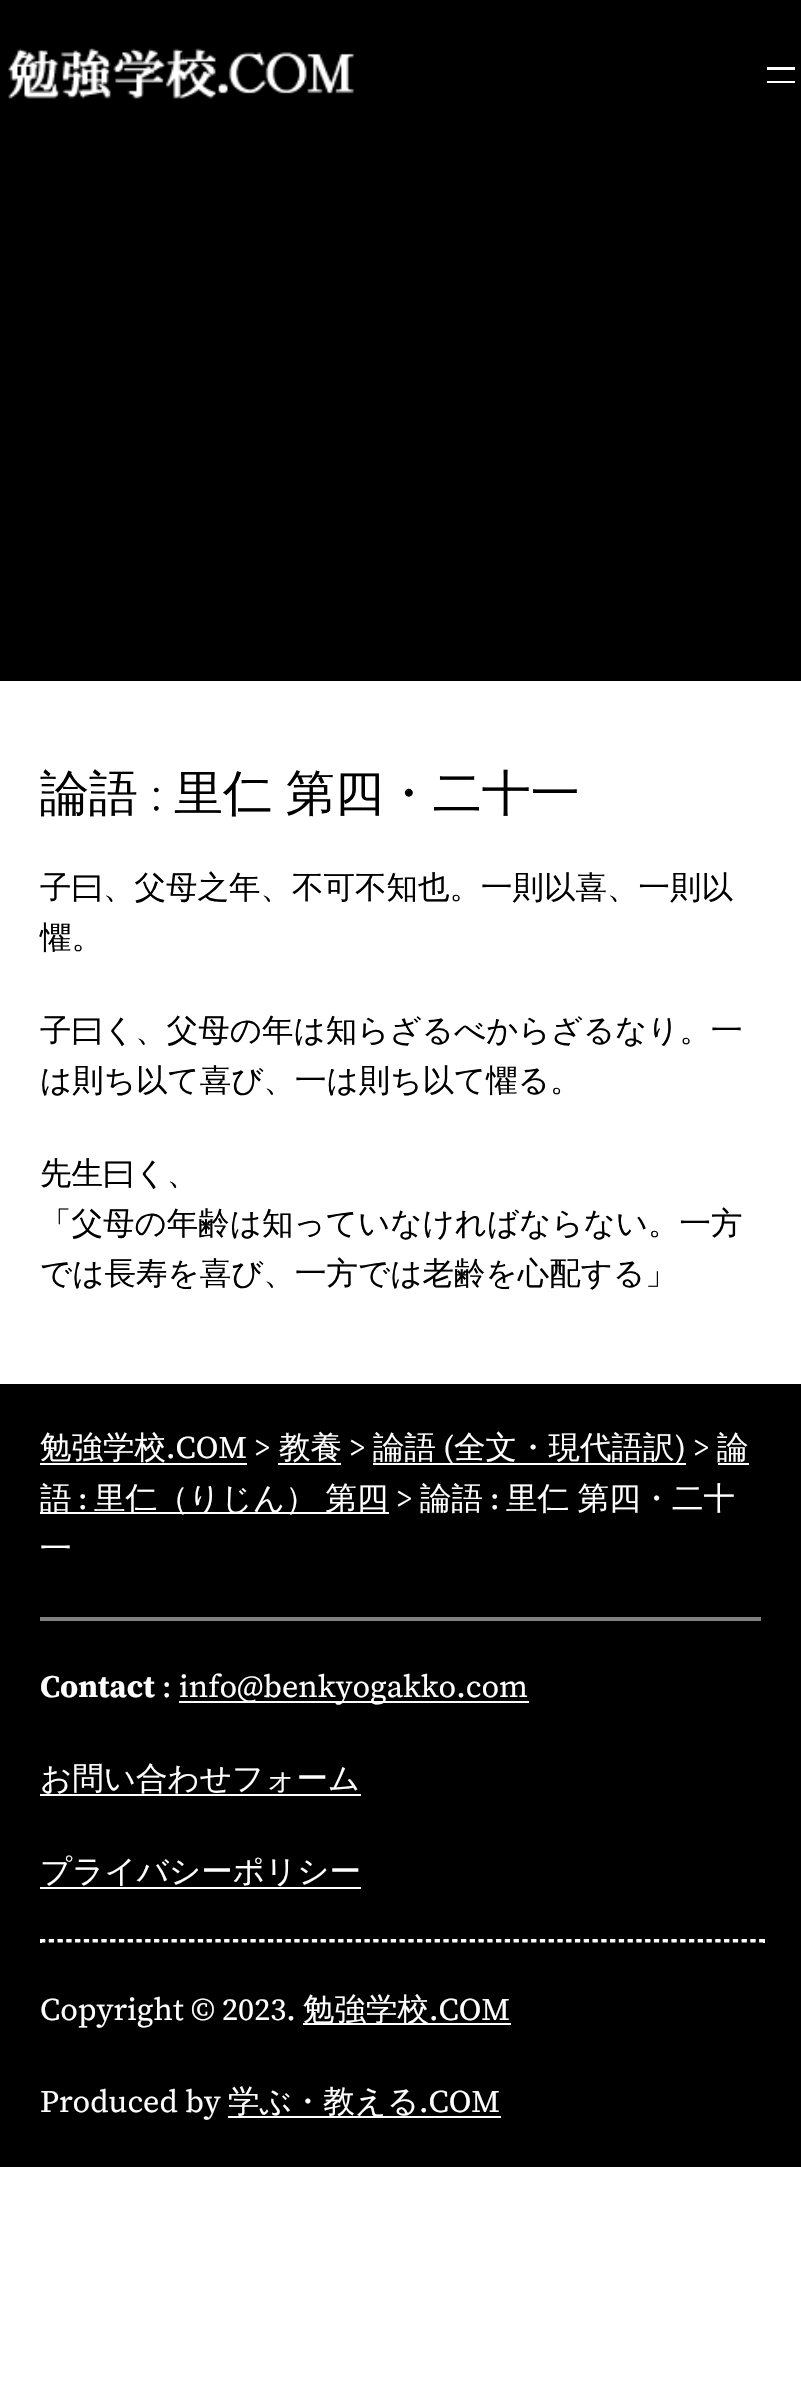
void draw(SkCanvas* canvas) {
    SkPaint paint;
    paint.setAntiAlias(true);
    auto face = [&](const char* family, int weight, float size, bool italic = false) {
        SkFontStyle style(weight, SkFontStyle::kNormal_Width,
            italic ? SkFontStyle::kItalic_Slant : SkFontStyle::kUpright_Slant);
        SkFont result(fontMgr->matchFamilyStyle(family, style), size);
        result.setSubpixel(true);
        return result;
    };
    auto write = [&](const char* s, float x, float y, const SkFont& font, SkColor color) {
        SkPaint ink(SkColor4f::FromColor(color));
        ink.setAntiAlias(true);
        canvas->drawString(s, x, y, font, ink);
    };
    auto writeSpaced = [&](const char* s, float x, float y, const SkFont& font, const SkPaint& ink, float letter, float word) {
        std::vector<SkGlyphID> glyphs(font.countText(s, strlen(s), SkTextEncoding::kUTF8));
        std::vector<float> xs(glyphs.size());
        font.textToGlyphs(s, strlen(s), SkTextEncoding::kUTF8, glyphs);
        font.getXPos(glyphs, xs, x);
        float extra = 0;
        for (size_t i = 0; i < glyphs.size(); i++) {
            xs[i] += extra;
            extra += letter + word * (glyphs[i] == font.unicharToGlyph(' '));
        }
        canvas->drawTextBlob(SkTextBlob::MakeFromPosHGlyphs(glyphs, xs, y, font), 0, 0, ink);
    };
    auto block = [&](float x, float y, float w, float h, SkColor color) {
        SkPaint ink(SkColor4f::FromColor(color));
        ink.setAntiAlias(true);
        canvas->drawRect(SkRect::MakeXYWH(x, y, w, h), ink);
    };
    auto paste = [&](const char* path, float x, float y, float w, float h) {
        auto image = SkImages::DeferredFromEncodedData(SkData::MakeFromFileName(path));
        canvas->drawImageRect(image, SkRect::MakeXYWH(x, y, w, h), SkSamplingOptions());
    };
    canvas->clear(SK_ColorWHITE);
    block(0, 0, 801, 681, SK_ColorBLACK);
    paste("pic1.png", 8, 48, 346, 51);
    block(767, 67, 28, 3, SK_ColorWHITE);
    block(767, 81, 28, 2, SK_ColorWHITE);
    auto kFont1 = face("WenQuanYi Zen Hei", 500, 49);
    write("論語", 40, 810, kFont1, SK_ColorBLACK);
    auto kFont2 = face("Source Serif 4", 300, 49);
    write(":", 149, 810, kFont2, SK_ColorBLACK);
    paint.setColor(SK_ColorBLACK);
    writeSpaced("里仁 第四・二十一", 174, 810, kFont1, paint, 0, -1);
    auto kFont3 = face("WenQuanYi Zen Hei", 500, 31.5f);
    write("子曰、父母之年、不可不知也。一則以喜、一則以", 40, 898, kFont3, SK_ColorBLACK);
    write("懼。", 40, 948, kFont3, SK_ColorBLACK);
    write("子曰く、父母の年は知らざるべからざるなり。一", 40, 1041, kFont3, SK_ColorBLACK);
    write("は則ち以て喜び、一は則ち以て懼る。", 40, 1091, kFont3, SK_ColorBLACK);
    write("先生曰く、", 40, 1184, kFont3, SK_ColorBLACK);
    write("「父母の年齢は知っていなければならない。一方", 40, 1234, kFont3, SK_ColorBLACK);
    write("では長寿を喜び、一方では老齢を心配する」", 40, 1284, kFont3, SK_ColorBLACK);
    block(0, 1384, 801, 783, SK_ColorBLACK);
    write("勉強学校", 40, 1458, kFont3, SK_ColorWHITE);
    block(40, 1463, 207, 2, SK_ColorWHITE);
    auto kFont4 = face("Source Serif 4", 400, 31.5f);
    write(".COM", 166, 1458, kFont4, SK_ColorWHITE);
    auto kFont5 = face("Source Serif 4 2", 400, 31.5f);
    write(">", 254, 1458, kFont5, SK_ColorWHITE);
    write("教養", 279, 1458, kFont3, SK_ColorWHITE);
    block(278, 1463, 63, 2, SK_ColorWHITE);
    write(">", 349, 1458, kFont5, SK_ColorWHITE);
    write("論語", 373, 1458, kFont3, SK_ColorWHITE);
    block(373, 1463, 313, 2, SK_ColorWHITE);
    write("(", 443, 1458, kFont4, SK_ColorWHITE);
    write("全文・現代語訳", 454, 1458, kFont3, SK_ColorWHITE);
    write(")", 675, 1458, kFont4, SK_ColorWHITE);
    write(">", 693, 1458, kFont5, SK_ColorWHITE);
    write("論", 717, 1458, kFont3, SK_ColorWHITE);
    block(718, 1463, 31, 2, SK_ColorWHITE);
    block(40, 1512, 349, 2, SK_ColorWHITE);
    write("語", 40, 1509, kFont3, SK_ColorWHITE);
    write(":", 78, 1509, kFont4, SK_ColorWHITE);
    paint.setColor(SK_ColorWHITE);
    writeSpaced("里仁（りじん） 第四", 94, 1509, kFont3, paint, 0, -1);
    write(">", 396, 1509, kFont5, SK_ColorWHITE);
    write("論語", 420, 1509, kFont3, SK_ColorWHITE);
    write(":", 490, 1509, kFont4, SK_ColorWHITE);
    writeSpaced("里仁 第四・二十", 506, 1509, kFont3, paint, 0, -1);
    write("一", 40, 1559, kFont3, SK_ColorWHITE);
    block(40, 1617, 721, 4, SkColorSetRGB(128, 128, 128));
    auto kFont6 = face("Source Serif 4", 700, 31.5f);
    write("Contact", 40, 1697, kFont6, SK_ColorWHITE);
    write(":", 162, 1697, kFont5, SK_ColorWHITE);
    block(179, 1701, 350, 2, SK_ColorWHITE);
    write("info@benkyogakko.com", 179, 1697, kFont4, SK_ColorWHITE);
    write("お問い合わせフォーム", 40, 1789, kFont3, SK_ColorWHITE);
    block(40, 1794, 321, 2, SK_ColorWHITE);
    write("プライバシーポリシー", 40, 1882, kFont3, SK_ColorWHITE);
    block(40, 1887, 321, 2, SK_ColorWHITE);
    paint.setStyle(SkPaint::kStroke_Style);
    paint.setStrokeWidth(1.8f);
    paint.setPathEffect(SkDashPathEffect::Make({{5.25f, 3.52f}}, 0));
    canvas->drawPath(SkPathBuilder().moveTo(40, 1940).lineTo(765, 1940).detach(), paint);
    paint.setPathEffect(nullptr);
    block(763, 1939, 2, 4, SK_ColorWHITE);
    paint.setPathEffect(SkDashPathEffect::Make({{5.25f, 3.52f}}, 0));
    canvas->drawPath(SkPathBuilder().moveTo(40, 1941.5f).lineTo(765, 1941.5f).detach(), paint);
    paint.setPathEffect(nullptr);
    block(40, 1939, 2, 4, SK_ColorWHITE);
    write("Copyright © 2023.", 40, 2020, kFont4, SK_ColorWHITE);
    block(303, 2023, 208, 2, SK_ColorWHITE);
    write("勉強学校", 303, 2020, kFont3, SK_ColorWHITE);
    write(".COM", 429, 2020, kFont4, SK_ColorWHITE);
    write("Produced by", 40, 2112, kFont4, SK_ColorWHITE);
    block(228, 2116, 273, 2, SK_ColorWHITE);
    write("学ぶ・教える", 228, 2112, kFont3, SK_ColorWHITE);
    write(".COM", 419, 2112, kFont4, SK_ColorWHITE);
}
